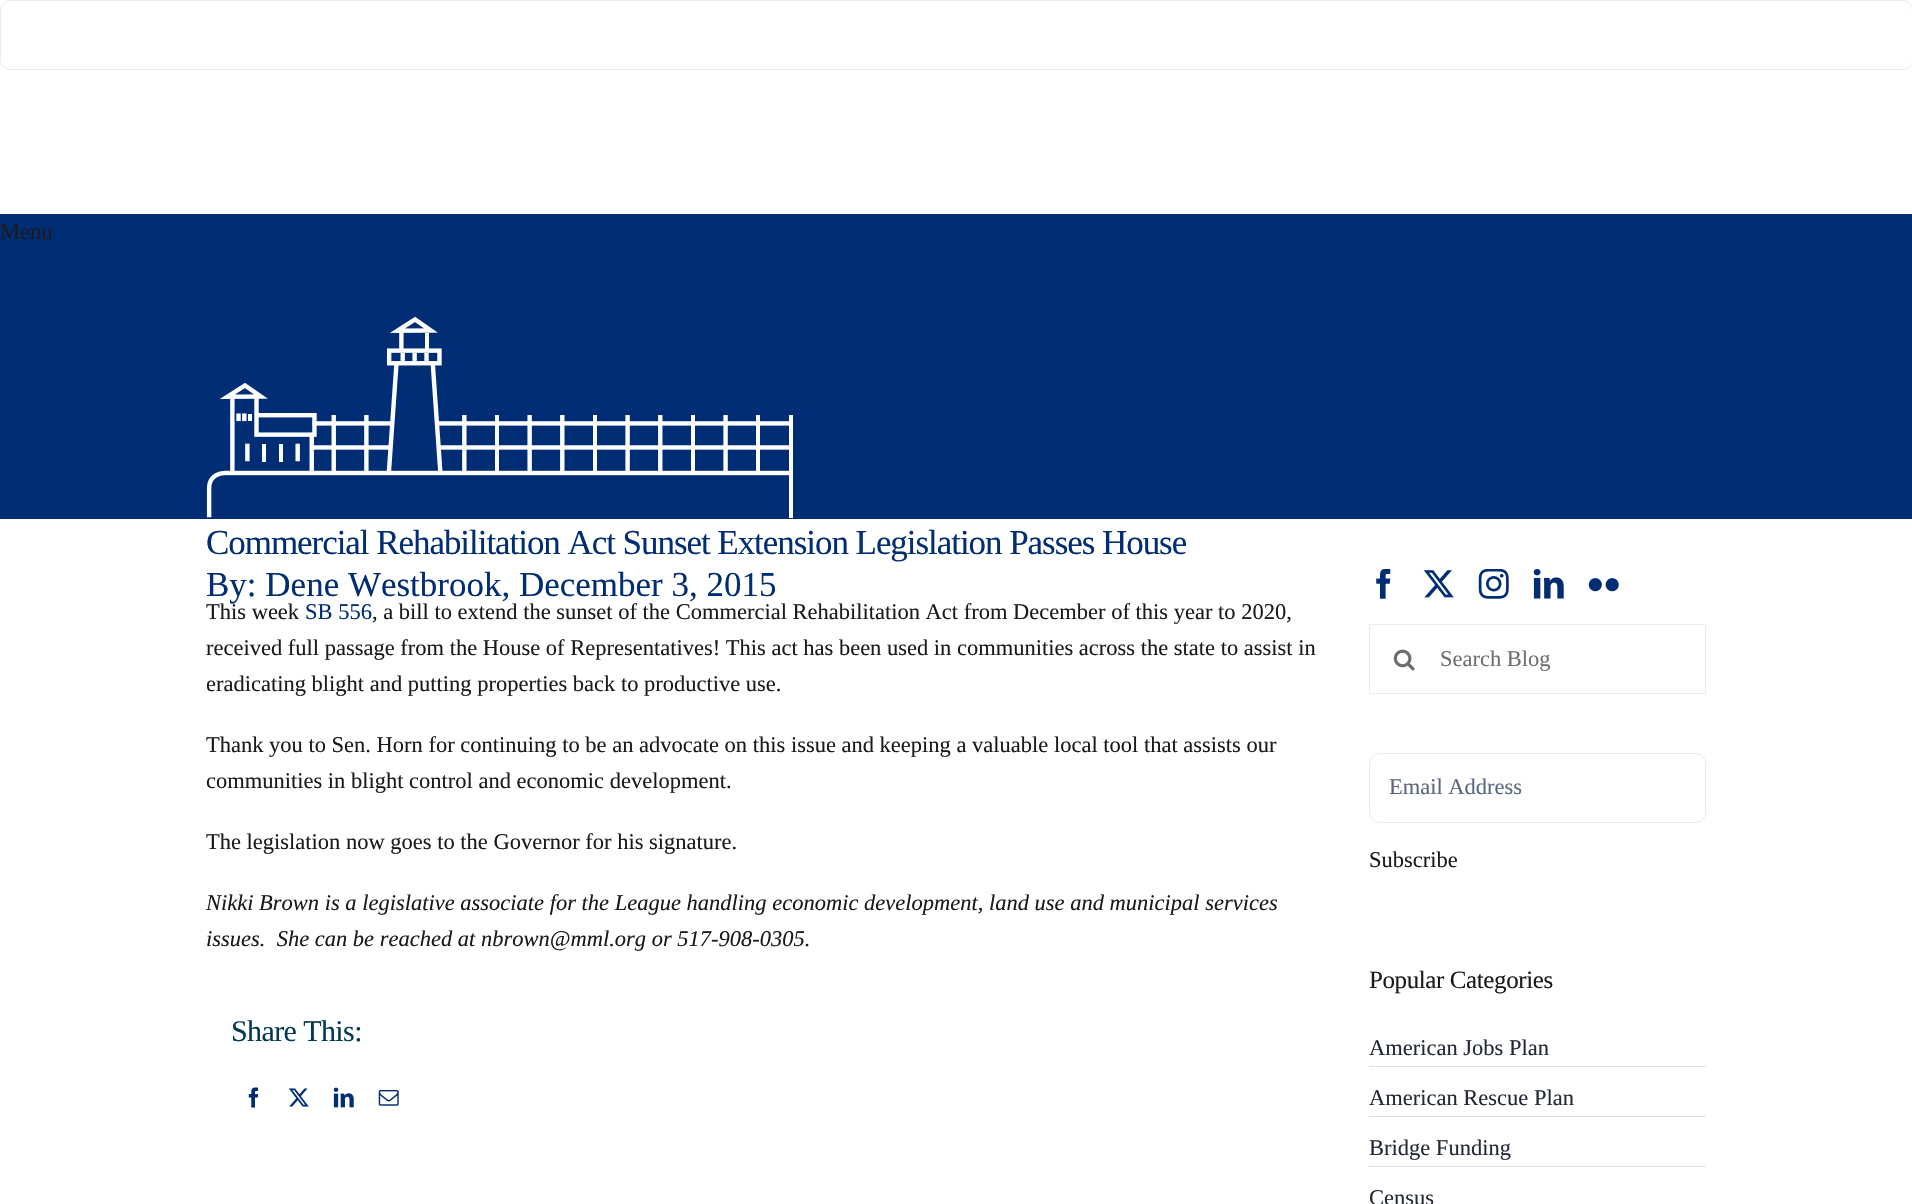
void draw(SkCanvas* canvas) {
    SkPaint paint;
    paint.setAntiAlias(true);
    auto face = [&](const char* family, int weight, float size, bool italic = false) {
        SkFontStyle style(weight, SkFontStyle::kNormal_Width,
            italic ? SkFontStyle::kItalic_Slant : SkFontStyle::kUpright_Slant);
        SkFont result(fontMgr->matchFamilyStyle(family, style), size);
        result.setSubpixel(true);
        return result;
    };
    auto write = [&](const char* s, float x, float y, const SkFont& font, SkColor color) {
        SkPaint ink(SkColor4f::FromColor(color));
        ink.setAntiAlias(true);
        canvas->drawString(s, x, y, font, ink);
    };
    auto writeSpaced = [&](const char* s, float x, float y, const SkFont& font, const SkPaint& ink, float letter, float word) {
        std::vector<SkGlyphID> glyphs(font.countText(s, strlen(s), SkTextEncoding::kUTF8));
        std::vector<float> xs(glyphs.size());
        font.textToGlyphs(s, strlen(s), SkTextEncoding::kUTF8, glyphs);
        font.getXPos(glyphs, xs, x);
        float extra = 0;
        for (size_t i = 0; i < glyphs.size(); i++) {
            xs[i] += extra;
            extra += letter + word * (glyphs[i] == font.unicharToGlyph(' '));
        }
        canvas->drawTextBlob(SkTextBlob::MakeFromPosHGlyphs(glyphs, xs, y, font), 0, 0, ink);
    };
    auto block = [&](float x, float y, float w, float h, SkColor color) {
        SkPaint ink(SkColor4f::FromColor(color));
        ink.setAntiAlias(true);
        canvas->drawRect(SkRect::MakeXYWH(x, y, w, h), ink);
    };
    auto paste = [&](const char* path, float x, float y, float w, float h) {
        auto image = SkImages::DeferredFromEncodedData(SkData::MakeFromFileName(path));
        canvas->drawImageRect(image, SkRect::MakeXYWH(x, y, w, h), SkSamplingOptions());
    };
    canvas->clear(SK_ColorWHITE);
    block(0, 214, 1912, 305, SkColorSetRGB(0, 45, 116));
    paste("pic1.png", 206, 316, 587, 202);
    paint.setStyle(SkPaint::kStroke_Style);
    paint.setStrokeWidth(1);
    paint.setColor(SkColorSetRGB(232, 235, 239));
    canvas->drawRoundRect(SkRect::MakeXYWH(0.5f, 0.5f, 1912, 69), 9.5f, 9.5f, paint);
    auto kFont1 = face("Liberation Serif", 400, 22.5f);
    write("Menu", 0, 239, kFont1, SkColorSetRGB(26, 26, 26));
    auto kFont2 = face("Liberation Serif", 400, 35);
    paint.setStyle(SkPaint::kFill_Style);
    paint.setColor(SkColorSetRGB(0, 45, 116));
    writeSpaced("Commercial Rehabilitation Act Sunset Extension Legislation Passes House", 206, 554, kFont2, paint, -1.05f, 0);
    write("By: Dene Westbrook, December 3, 2015", 206, 596, kFont2, SkColorSetRGB(0, 45, 116));
    write("This week", 206, 619, kFont1, SkColorSetRGB(26, 26, 26));
    write("SB 556", 305, 619, kFont1, SkColorSetRGB(0, 45, 116));
    write(", a bill to extend the sunset of the Commercial Rehabilitation Act from December of this year to 2020,", 372, 619, kFont1, SkColorSetRGB(26, 26, 26));
    write("received full passage from the House of Representatives! This act has been used in communities across the state to assist in", 206, 655, kFont1, SkColorSetRGB(26, 26, 26));
    write("eradicating blight and putting properties back to productive use.", 206, 691, kFont1, SkColorSetRGB(26, 26, 26));
    write("Thank you to Sen. Horn for continuing to be an advocate on this issue and keeping a valuable local tool that assists our", 206, 752, kFont1, SkColorSetRGB(26, 26, 26));
    write("communities in blight control and economic development.", 206, 788, kFont1, SkColorSetRGB(26, 26, 26));
    write("The legislation now goes to the Governor for his signature.", 206, 849, kFont1, SkColorSetRGB(26, 26, 26));
    auto kFont3 = face("Liberation Serif", 400, 22.5f, true);
    write("Nikki Brown is a legislative associate for the League handling economic development, land use and municipal services", 206, 910, kFont3, SkColorSetRGB(26, 26, 26));
    write("issues.  She can be reached at nbrown@mml.org or 517-908-0305.", 206, 946, kFont3, SkColorSetRGB(26, 26, 26));
    auto kFont4 = face("Liberation Serif", 400, 30);
    paint.setColor(SkColorSetRGB(2, 58, 81));
    writeSpaced("Share This:", 231, 1041, kFont4, paint, -0.6f, 0);
    paste("pic2.png", 248, 1087, 11, 21);
    paste("pic3.png", 288, 1088, 21, 19);
    paste("pic4.png", 333, 1087, 21, 21);
    paste("pic5.png", 378, 1090, 21, 16);
    paste("pic6.png", 1376, 569, 15, 30);
    paste("pic7.png", 1423, 570, 31, 28);
    paste("pic8.png", 1478, 569, 31, 30);
    paste("pic9.png", 1533, 569, 31, 30);
    paste("pic10.png", 1588, 578, 31, 14);
    paint.setStyle(SkPaint::kStroke_Style);
    paint.setColor(SkColorSetRGB(232, 235, 239));
    canvas->drawRect(SkRect::MakeXYWH(1369.5f, 624.5f, 336, 69), paint);
    paste("pic11.png", 1393, 649, 22, 22);
    write("Search Blog", 1440, 666, kFont1, SkColorSetRGB(111, 111, 111));
    canvas->drawRoundRect(SkRect::MakeXYWH(1369.5f, 753.5f, 336, 69), 9.5f, 9.5f, paint);
    write("Email Address", 1389, 794, kFont1, SkColorSetRGB(89, 102, 125));
    write("Subscribe", 1369, 867, kFont1, SkColorSetRGB(26, 26, 26));
    auto kFont5 = face("Liberation Serif", 400, 25);
    paint.setStyle(SkPaint::kFill_Style);
    paint.setColor(SkColorSetRGB(26, 26, 26));
    writeSpaced("Popular Categories", 1369, 988, kFont5, paint, -0.4f, 0);
    write("American Jobs Plan", 1369, 1055, kFont1, SkColorSetRGB(33, 41, 52));
    block(1369, 1066, 337, 1, SkColorSetRGB(224, 224, 224));
    write("American Rescue Plan", 1369, 1105, kFont1, SkColorSetRGB(33, 41, 52));
    block(1369, 1116, 337, 1, SkColorSetRGB(224, 224, 224));
    write("Bridge Funding", 1369, 1155, kFont1, SkColorSetRGB(33, 41, 52));
    block(1369, 1166, 337, 1, SkColorSetRGB(224, 224, 224));
    write("Census", 1369, 1205, kFont1, SkColorSetRGB(33, 41, 52));
}
